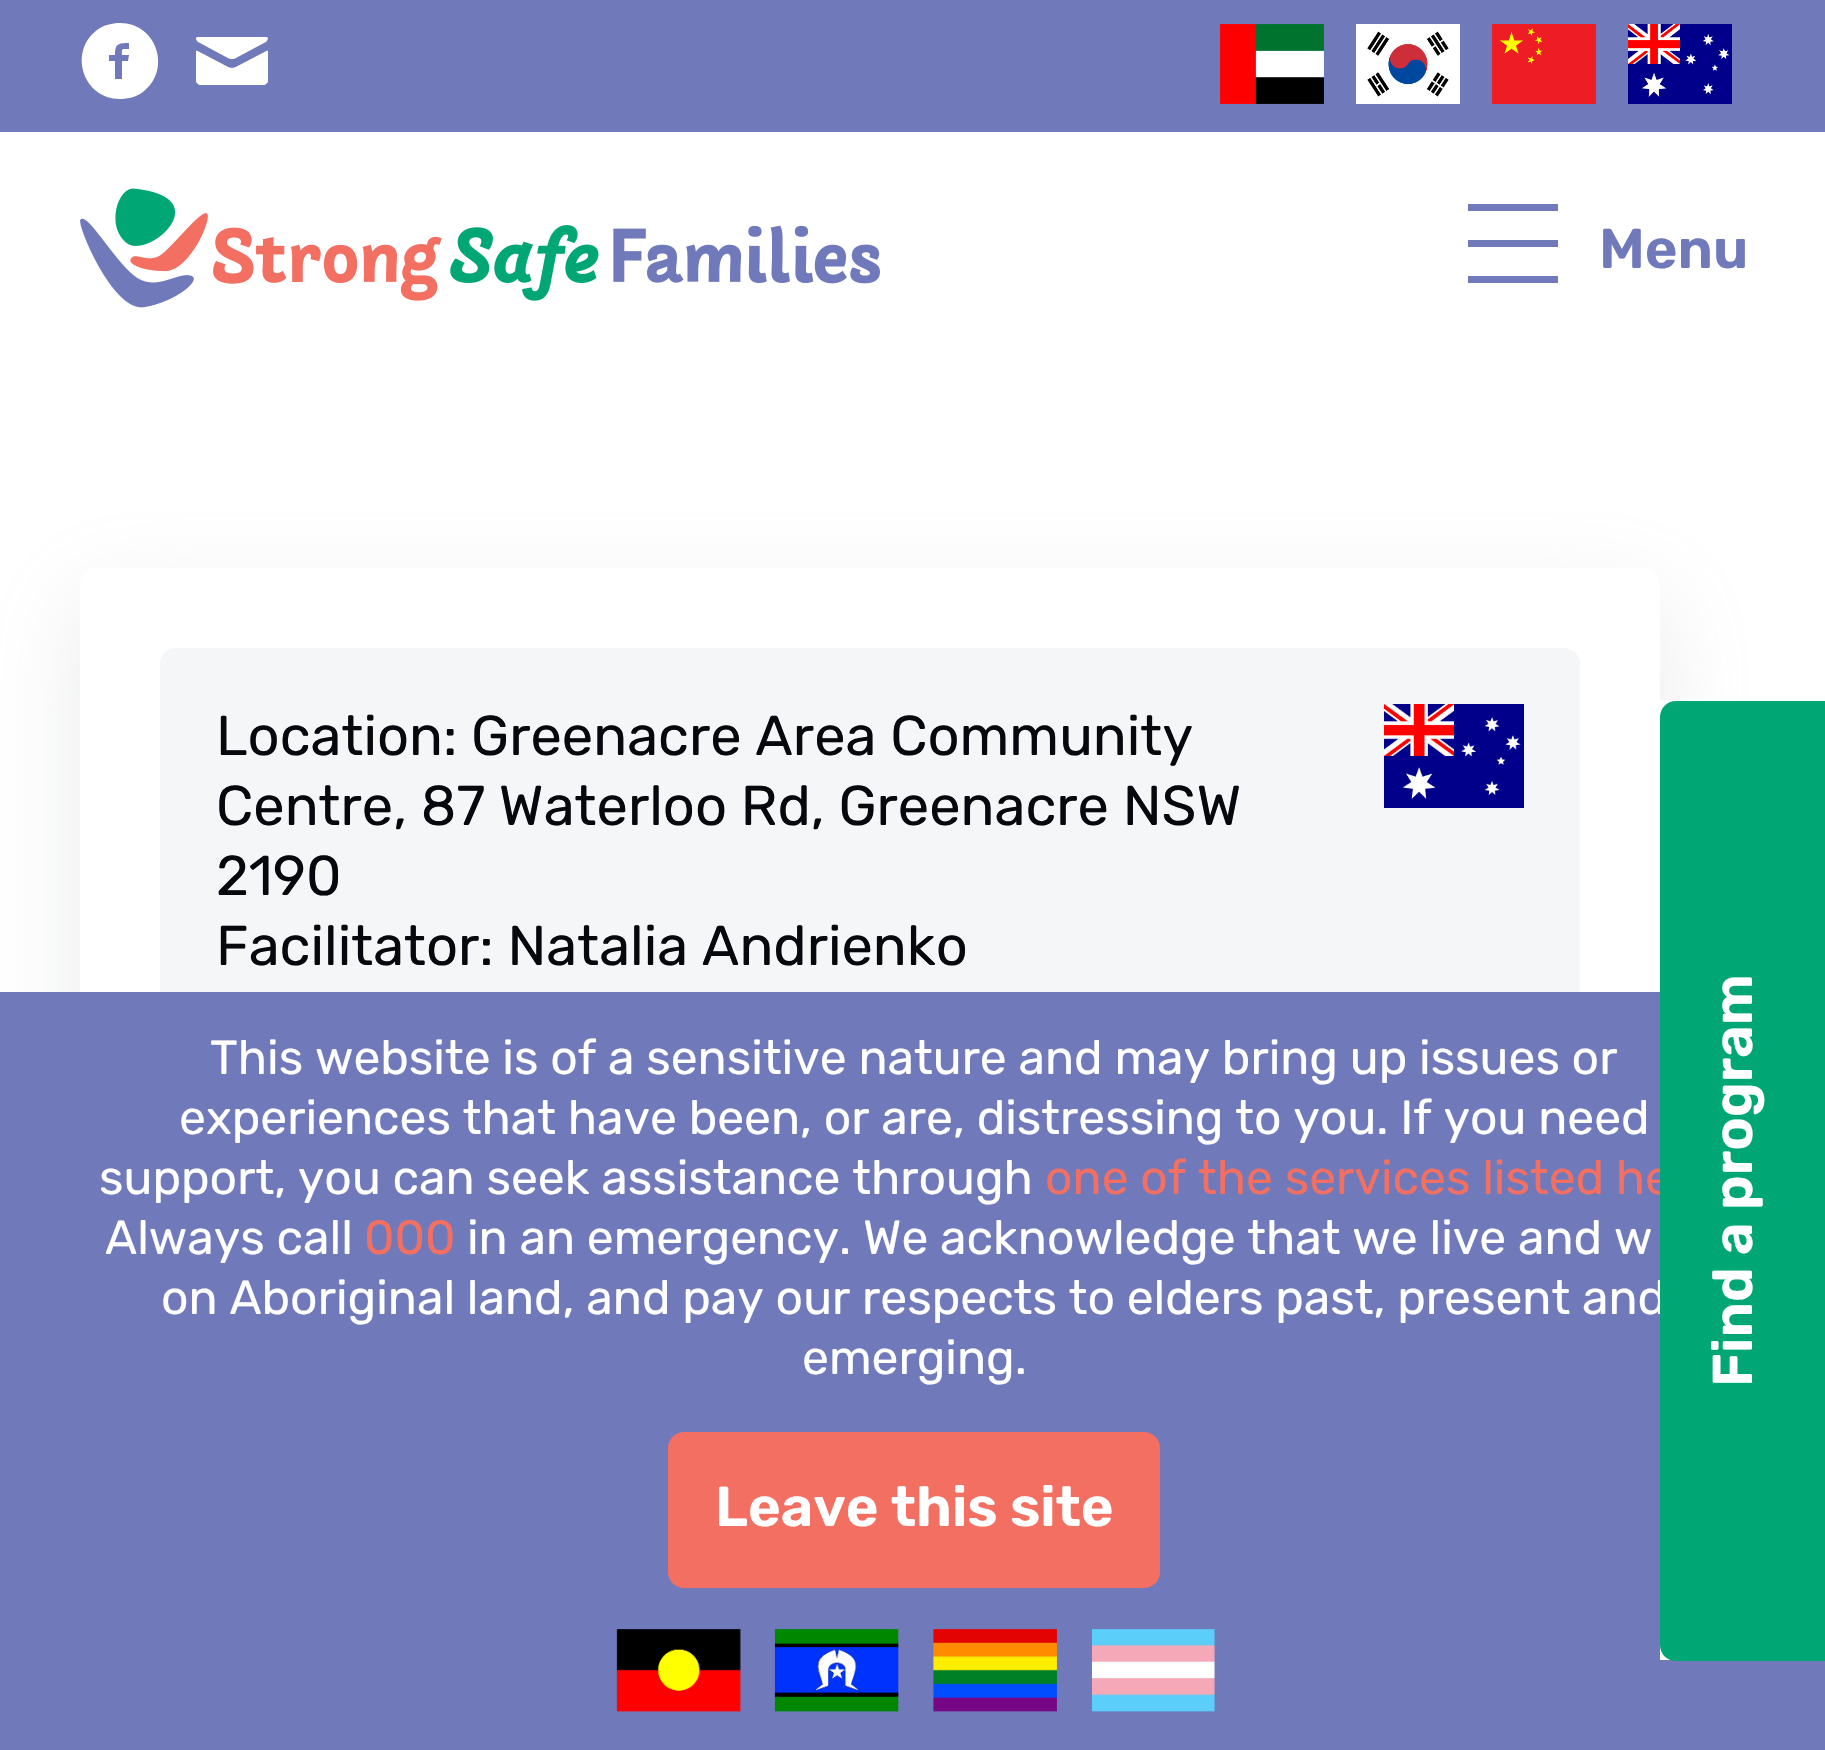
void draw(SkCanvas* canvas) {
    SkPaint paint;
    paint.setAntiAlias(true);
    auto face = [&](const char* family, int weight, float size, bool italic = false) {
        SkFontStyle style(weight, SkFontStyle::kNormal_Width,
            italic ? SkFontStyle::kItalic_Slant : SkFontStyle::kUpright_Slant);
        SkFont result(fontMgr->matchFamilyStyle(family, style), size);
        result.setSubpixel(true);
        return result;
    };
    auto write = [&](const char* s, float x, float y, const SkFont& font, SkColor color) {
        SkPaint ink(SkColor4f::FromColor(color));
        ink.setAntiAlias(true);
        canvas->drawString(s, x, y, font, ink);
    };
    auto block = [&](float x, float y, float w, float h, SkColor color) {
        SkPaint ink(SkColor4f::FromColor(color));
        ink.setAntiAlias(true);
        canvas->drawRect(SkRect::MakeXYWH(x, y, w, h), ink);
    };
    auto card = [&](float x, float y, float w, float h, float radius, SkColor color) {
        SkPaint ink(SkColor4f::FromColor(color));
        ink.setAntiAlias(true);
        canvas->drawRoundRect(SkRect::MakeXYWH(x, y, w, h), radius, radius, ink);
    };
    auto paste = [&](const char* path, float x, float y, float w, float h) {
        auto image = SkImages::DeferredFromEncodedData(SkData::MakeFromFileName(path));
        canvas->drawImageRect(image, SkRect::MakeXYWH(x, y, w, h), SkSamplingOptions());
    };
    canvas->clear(SK_ColorWHITE);
    canvas->save();
    canvas->clipPath(SkPathBuilder(SkPathFillType::kEvenOdd).moveTo(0, 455).lineTo(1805, 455).lineTo(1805, 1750).lineTo(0, 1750).close().moveTo(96, 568).lineTo(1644, 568).cubicTo(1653, 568, 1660, 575, 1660, 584).lineTo(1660, 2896).cubicTo(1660, 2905, 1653, 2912, 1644, 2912).lineTo(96, 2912).cubicTo(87, 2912, 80, 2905, 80, 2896).lineTo(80, 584).cubicTo(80, 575, 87, 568, 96, 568).close().detach(), true);
    paint.setColor(SkColorSetARGB(51, 149, 157, 165));
    paint.setMaskFilter(SkMaskFilter::MakeBlur(kNormal_SkBlurStyle, 48));
    canvas->drawRoundRect(SkRect::MakeXYWH(80, 600, 1580, 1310), 16, 16, paint);
    paint.setMaskFilter(nullptr);
    canvas->restore();
    card(160, 648, 1420, 908, 16, SkColorSetRGB(245, 246, 247));
    auto kFont1 = face("Rubik", 400, 56);
    write("Location: Greenacre Area Community", 216, 755, kFont1, SkColorSetRGB(7, 8, 14));
    write("Centre, 87 Waterloo Rd, Greenacre NSW", 216, 825, kFont1, SkColorSetRGB(7, 8, 14));
    write("2190", 216, 895, kFont1, SkColorSetRGB(7, 8, 14));
    write("Facilitator: Natalia Andrienko", 216, 965, kFont1, SkColorSetRGB(7, 8, 14));
    paste("pic1.png", 1384, 704, 140, 104);
    block(0, 0, 1825, 132, SkColorSetRGB(112, 122, 187));
    paint.setColor(SK_ColorWHITE);
    canvas->drawPath(SkPathBuilder().moveTo(120, 23).cubicTo(112, 23, 104, 25, 97, 30).cubicTo(68, 52, 83, 99, 120, 99).cubicTo(128, 99, 136, 97, 143, 92).cubicTo(172, 70, 157, 23, 120, 23).close().moveTo(129, 49).cubicTo(121, 49, 122, 48, 122, 55).lineTo(129, 55).lineTo(128, 61).lineTo(122, 61).lineTo(122, 79).lineTo(115, 79).lineTo(115, 61).lineTo(109, 61).lineTo(109, 55).lineTo(115, 55).cubicTo(115, 44, 118, 43, 129, 43).close().detach(), paint);
    paste("pic2.png", 196, 37, 72, 48);
    paste("pic3.png", 1220, 24, 104, 80);
    paste("pic4.png", 1356, 24, 104, 80);
    paste("pic5.png", 1492, 24, 104, 80);
    paste("pic6.png", 1628, 24, 104, 80);
    paste("pic7.png", 80, 188, 800, 120);
    block(1468, 204, 90, 7, SkColorSetRGB(112, 122, 187));
    block(1468, 240, 90, 7, SkColorSetRGB(112, 122, 187));
    block(1468, 276, 90, 7, SkColorSetRGB(112, 122, 187));
    auto kFont2 = face("Rubik", 600, 56);
    write("Menu", 1599, 268, kFont2, SkColorSetRGB(112, 122, 187));
    block(0, 992, 1825, 758, SkColorSetRGB(112, 122, 187));
    auto kFont3 = face("Rubik", 400, 48);
    write("one of the services listed he", 1045, 1194, kFont3, SkColorSetRGB(243, 111, 98));
    block(1660, 700, 165, 960, SK_ColorWHITE);
    write("on Aboriginal land, and pay our respects to elders past, present and", 161, 1314, kFont3, SK_ColorWHITE);
    paint.setColor(SkColorSetRGB(0, 167, 116));
    canvas->drawPath(SkPathBuilder().moveTo(1660, 1645).lineTo(1660, 717).cubicTo(1660, 708, 1667, 701, 1676, 701).lineTo(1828, 701).lineTo(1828, 1661).lineTo(1676, 1661).cubicTo(1667, 1661, 1660, 1654, 1660, 1645).close().detach(), paint);
    canvas->save();
    canvas->rotate(-90, 1752, 1387);
    write("Find a program", 1752, 1387, kFont2, SK_ColorWHITE);
    canvas->restore();
    write("This website is of a sensitive nature and may bring up issues or", 210, 1074, kFont3, SK_ColorWHITE);
    write("experiences that have been, or are, distressing to you. If you need", 179, 1134, kFont3, SK_ColorWHITE);
    write("support, you can seek assistance through", 99, 1194, kFont3, SK_ColorWHITE);
    write("Always call", 105, 1254, kFont3, SK_ColorWHITE);
    write("000", 364, 1254, kFont3, SkColorSetRGB(243, 111, 98));
    write("in an emergency. We acknowledge that we live and w", 467, 1254, kFont3, SK_ColorWHITE);
    write("emerging.", 802, 1374, kFont3, SK_ColorWHITE);
    card(668, 1432, 492, 156, 16, SkColorSetRGB(243, 111, 98));
    write("Leave this site", 715, 1526, kFont2, SK_ColorWHITE);
    paste("pic8.png", 616, 1629, 599, 83);
}
